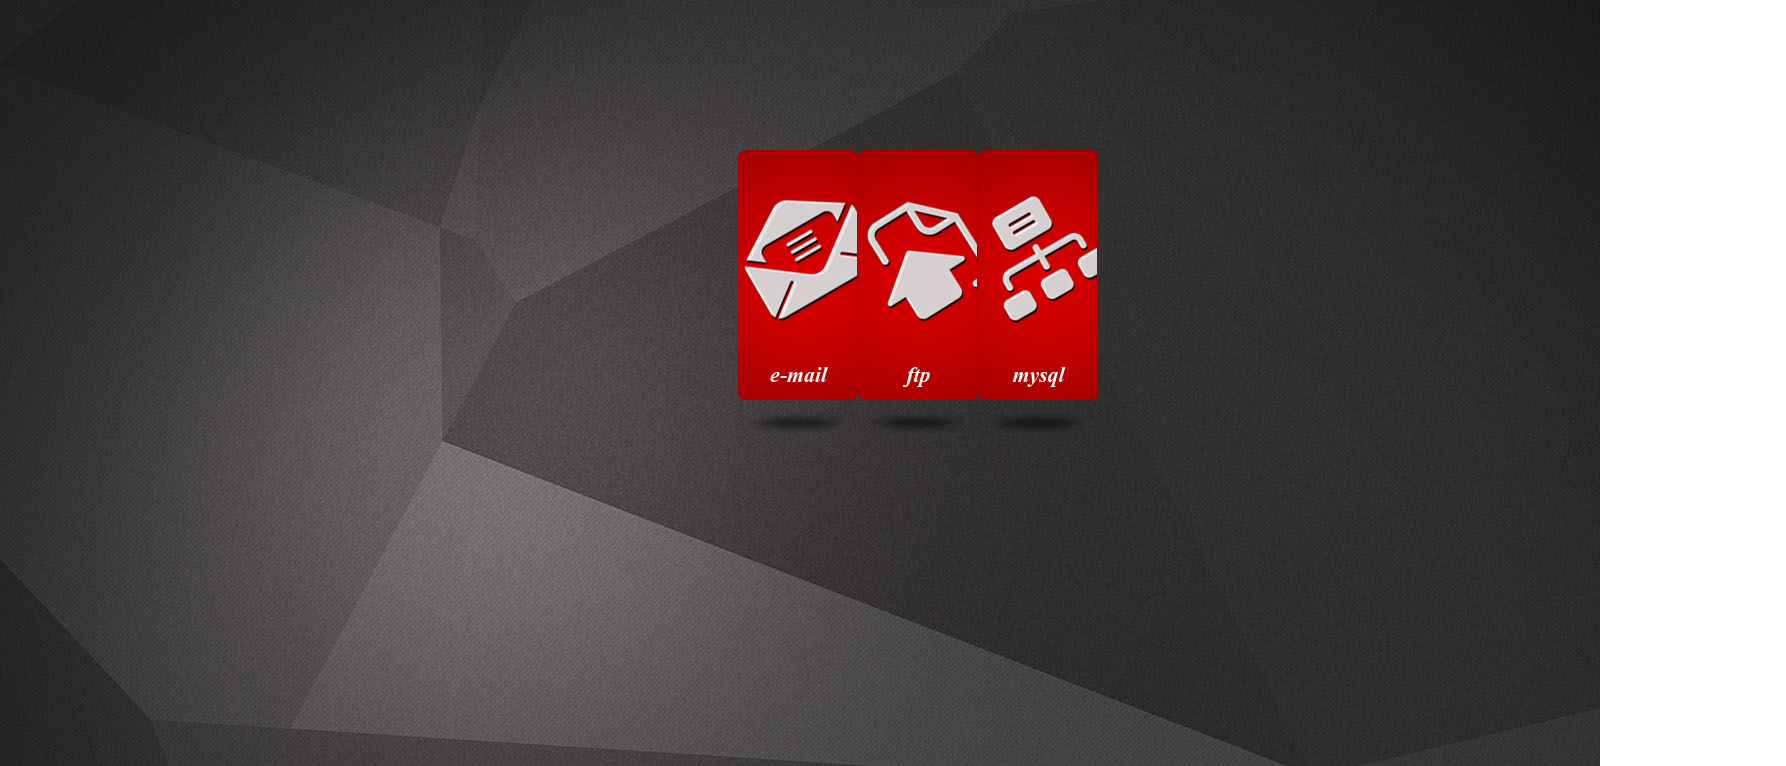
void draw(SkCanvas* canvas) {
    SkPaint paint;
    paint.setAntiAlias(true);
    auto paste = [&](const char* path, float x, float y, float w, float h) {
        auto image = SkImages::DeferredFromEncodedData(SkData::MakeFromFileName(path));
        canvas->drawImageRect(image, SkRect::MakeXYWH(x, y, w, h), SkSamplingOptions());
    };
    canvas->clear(SK_ColorWHITE);
    paste("pic1.png", 0, 0, 1600, 766);
    paste("pic2.png", 738, 150, 119, 250);
    paste("pic3.png", 749, 413, 96, 20);
    paste("pic4.png", 858, 150, 119, 250);
    paste("pic5.png", 869, 413, 95, 20);
    paste("pic6.png", 978, 150, 119, 250);
    paste("pic7.png", 991, 414, 93, 18);
}
